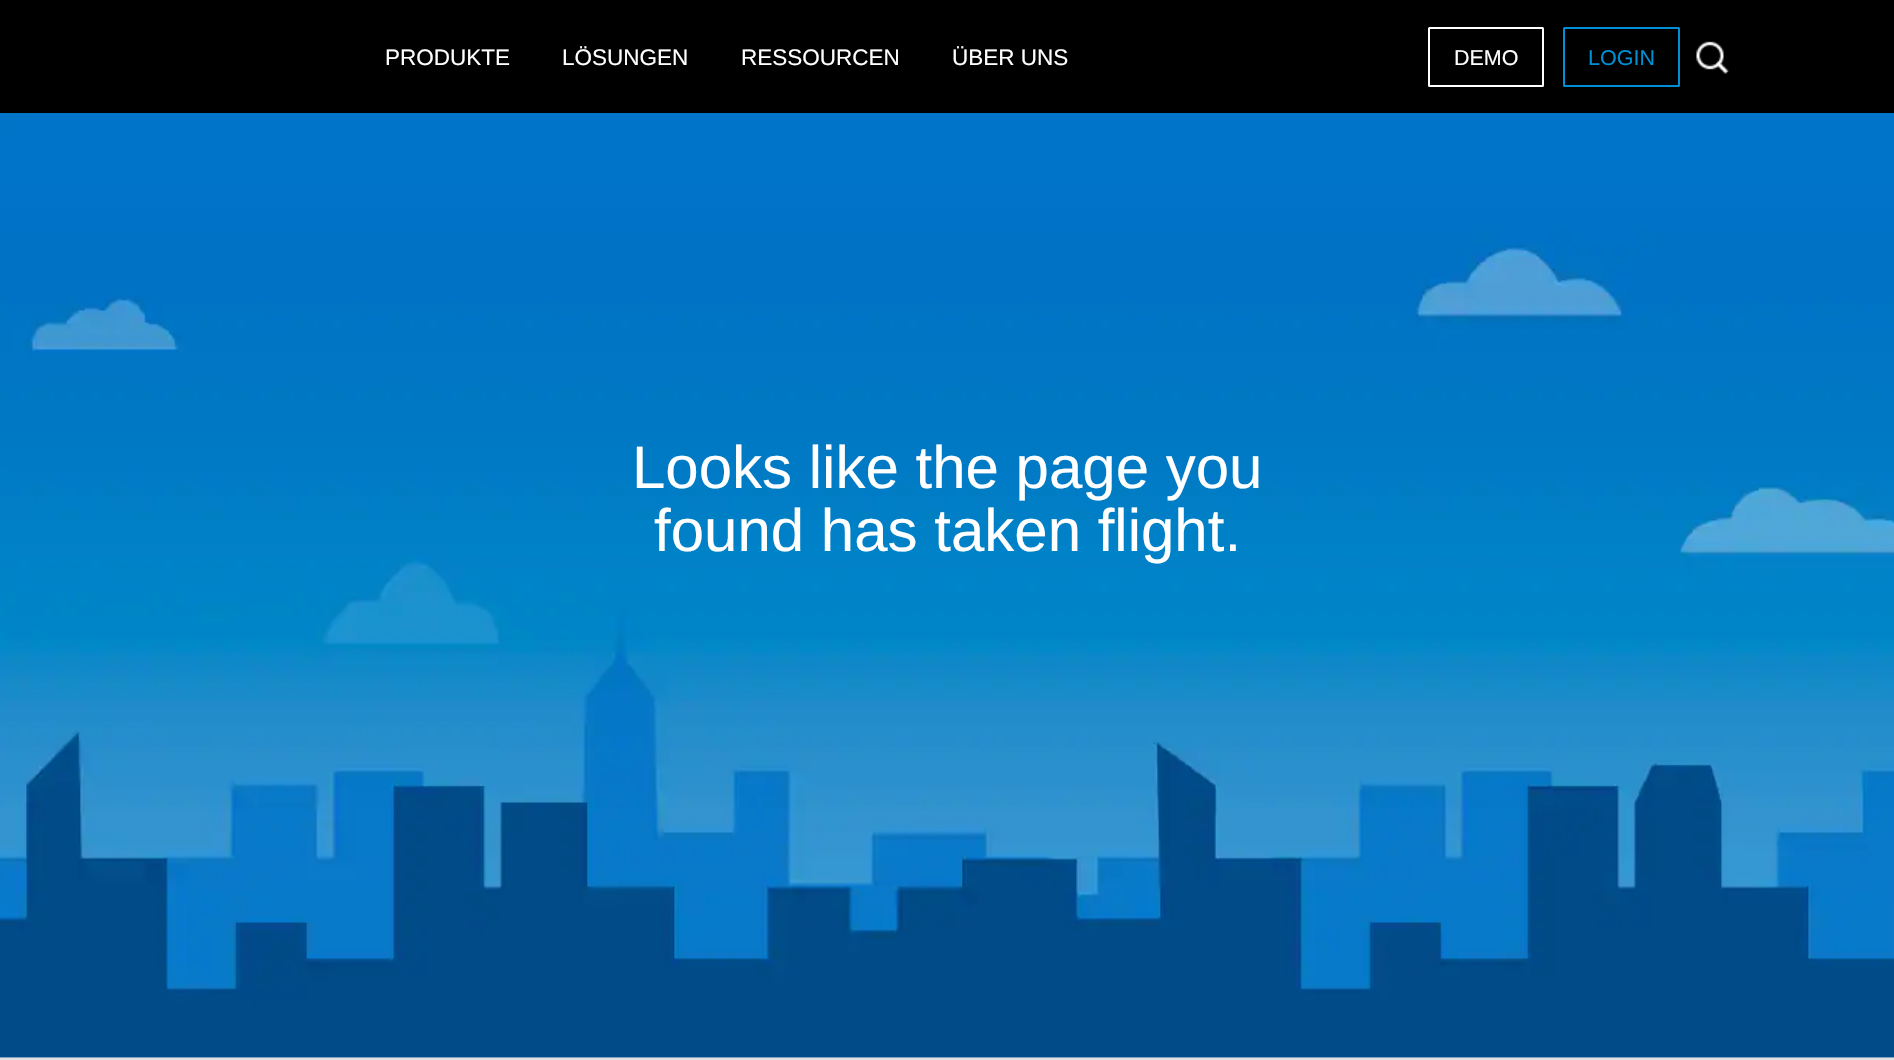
void draw(SkCanvas* canvas) {
    SkPaint paint;
    paint.setAntiAlias(true);
    auto face = [&](const char* family, int weight, float size, bool italic = false) {
        SkFontStyle style(weight, SkFontStyle::kNormal_Width,
            italic ? SkFontStyle::kItalic_Slant : SkFontStyle::kUpright_Slant);
        SkFont result(fontMgr->matchFamilyStyle(family, style), size);
        result.setSubpixel(true);
        return result;
    };
    auto write = [&](const char* s, float x, float y, const SkFont& font, SkColor color) {
        SkPaint ink(SkColor4f::FromColor(color));
        ink.setAntiAlias(true);
        canvas->drawString(s, x, y, font, ink);
    };
    auto block = [&](float x, float y, float w, float h, SkColor color) {
        SkPaint ink(SkColor4f::FromColor(color));
        ink.setAntiAlias(true);
        canvas->drawRect(SkRect::MakeXYWH(x, y, w, h), ink);
    };
    auto paste = [&](const char* path, float x, float y, float w, float h) {
        auto image = SkImages::DeferredFromEncodedData(SkData::MakeFromFileName(path));
        canvas->drawImageRect(image, SkRect::MakeXYWH(x, y, w, h), SkSamplingOptions());
    };
    canvas->clear(SK_ColorWHITE);
    block(0, 0, 1894, 113, SK_ColorBLACK);
    auto kFont1 = face("Liberation Sans", 400, 22.5f);
    write("PRODUKTE", 385, 65, kFont1, SK_ColorWHITE);
    write("LÖSUNGEN", 562, 65, kFont1, SK_ColorWHITE);
    write("RESSOURCEN", 741, 65, kFont1, SK_ColorWHITE);
    write("ÜBER UNS", 952, 65, kFont1, SK_ColorWHITE);
    paint.setStyle(SkPaint::kStroke_Style);
    paint.setStrokeWidth(2);
    paint.setColor(SK_ColorWHITE);
    canvas->drawRoundRect(SkRect::MakeXYWH(1429, 28, 114, 58), 0.5f, 0.5f, paint);
    auto kFont2 = face("Liberation Sans", 400, 21.5f);
    write("DEMO", 1454, 65, kFont2, SK_ColorWHITE);
    paint.setColor(SkColorSetRGB(0, 143, 211));
    canvas->drawRoundRect(SkRect::MakeXYWH(1564, 28, 115, 58), 0.5f, 0.5f, paint);
    write("LOGIN", 1588, 65, kFont2, SkColorSetRGB(0, 143, 211));
    paste("pic1.png", 1696, 41, 33, 33);
    paste("pic2.png", 0, 113, 1894, 945);
    auto kFont3 = face("Liberation Sans", 400, 60);
    write("Looks like the page you", 632, 488, kFont3, SK_ColorWHITE);
    write("found has taken flight.", 654, 551, kFont3, SK_ColorWHITE);
    block(0, 1058, 1894, 2, SkColorSetRGB(226, 226, 226));
}
